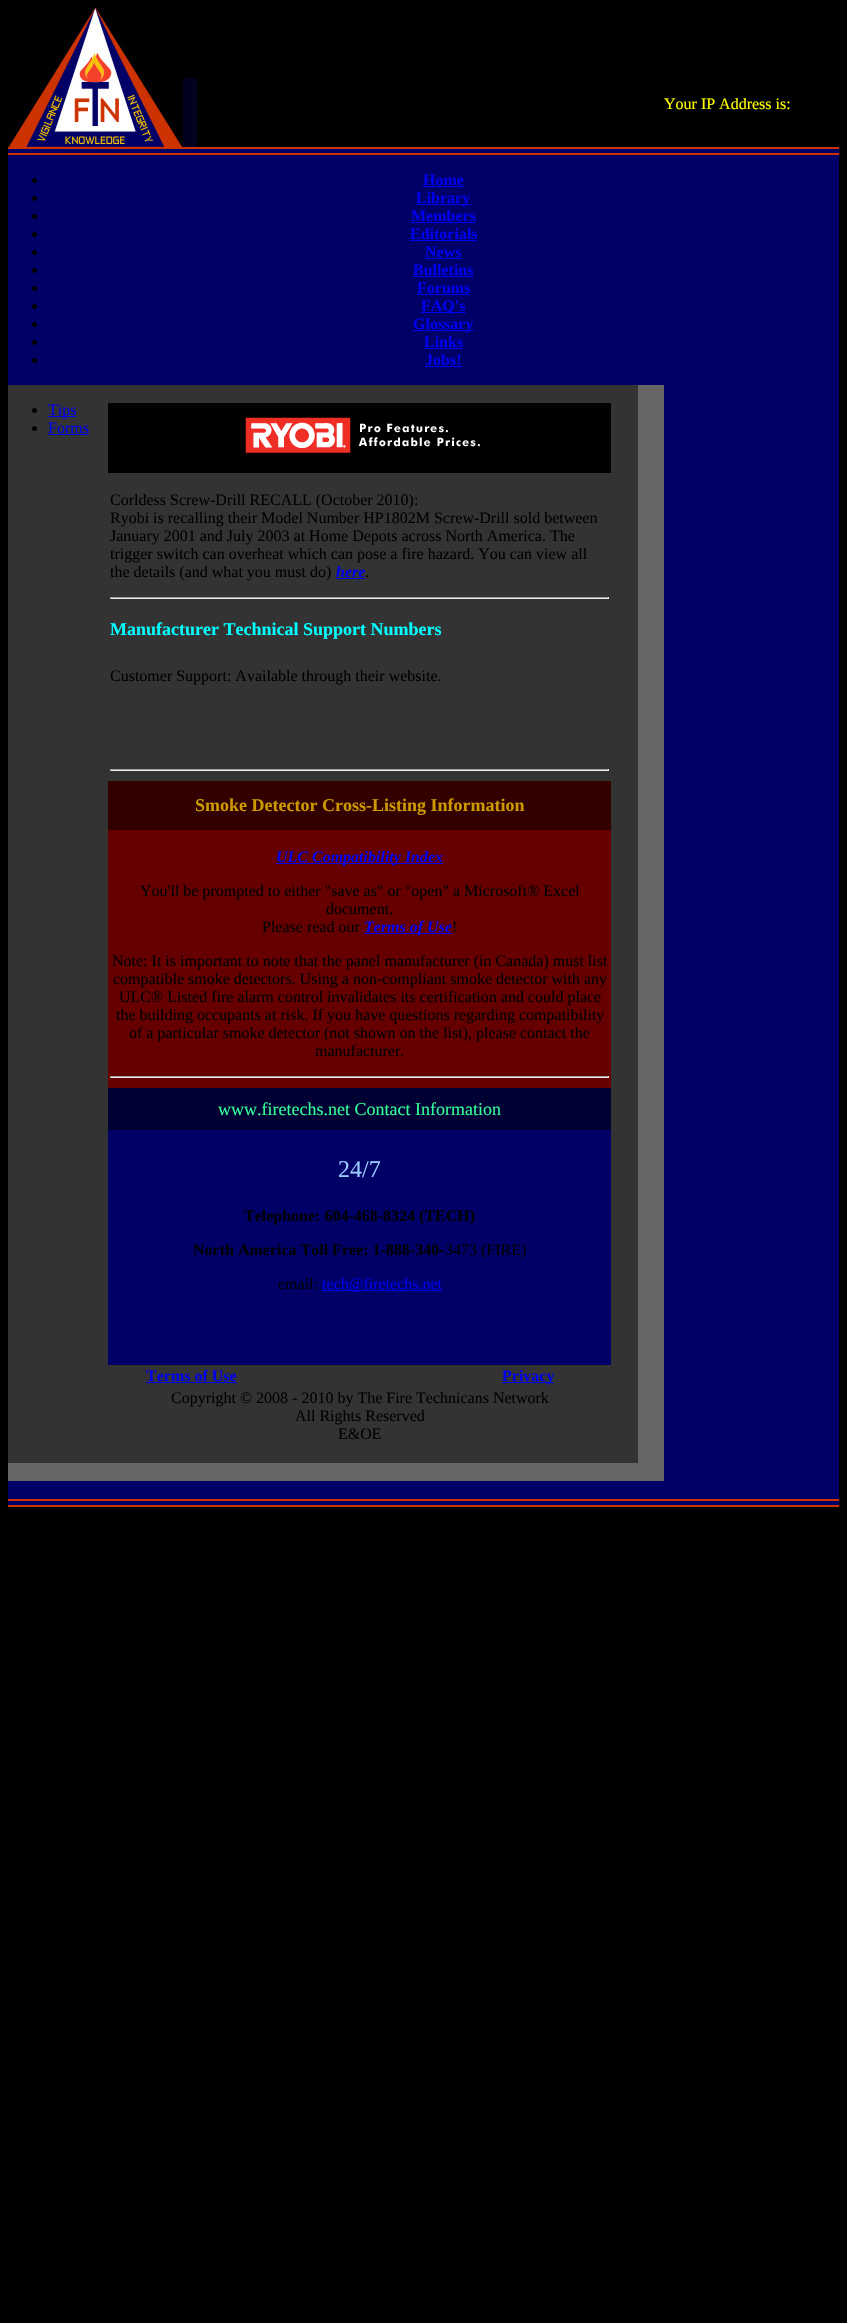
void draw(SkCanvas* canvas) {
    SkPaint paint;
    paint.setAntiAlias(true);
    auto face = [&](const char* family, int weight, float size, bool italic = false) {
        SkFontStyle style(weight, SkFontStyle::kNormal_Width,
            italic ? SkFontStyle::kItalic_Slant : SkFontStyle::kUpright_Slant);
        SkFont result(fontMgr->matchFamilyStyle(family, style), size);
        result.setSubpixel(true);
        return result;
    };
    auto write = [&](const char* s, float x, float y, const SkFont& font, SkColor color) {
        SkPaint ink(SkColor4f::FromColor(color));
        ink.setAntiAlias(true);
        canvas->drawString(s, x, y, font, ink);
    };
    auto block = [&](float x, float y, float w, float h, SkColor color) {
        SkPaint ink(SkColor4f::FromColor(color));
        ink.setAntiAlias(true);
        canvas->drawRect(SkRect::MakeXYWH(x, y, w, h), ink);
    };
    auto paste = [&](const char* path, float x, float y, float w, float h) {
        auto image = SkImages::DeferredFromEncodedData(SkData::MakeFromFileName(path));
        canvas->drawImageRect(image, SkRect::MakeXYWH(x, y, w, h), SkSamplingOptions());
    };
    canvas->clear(SK_ColorBLACK);
    paste("pic1.png", 8, 8, 175, 139);
    block(183, 78, 14, 69, SkColorSetRGB(2, 2, 30));
    auto kFont1 = face("Liberation Serif", 400, 16);
    write("Your IP Address is:", 664, 109, kFont1, SkColorSetRGB(255, 255, 0));
    block(8, 147, 831, 2, SkColorSetRGB(204, 51, 0));
    block(8, 149, 831, 4, SkColorSetRGB(0, 0, 102));
    block(8, 153, 831, 2, SkColorSetRGB(204, 51, 0));
    block(8, 155, 831, 230, SkColorSetRGB(0, 0, 102));
    paint.setColor(SK_ColorBLACK);
    canvas->drawCircle(34.5f, 180.5f, 2.5f, paint);
    auto kFont2 = face("Liberation Serif", 700, 16);
    write("Home", 423, 185, kFont2, SkColorSetRGB(0, 0, 238));
    block(423, 186, 41, 1, SkColorSetRGB(0, 0, 238));
    canvas->drawCircle(34.5f, 198.5f, 2.5f, paint);
    block(416, 204, 55, 1, SkColorSetRGB(0, 0, 238));
    write("Library", 416, 203, kFont2, SkColorSetRGB(0, 0, 238));
    canvas->drawCircle(34.5f, 216.5f, 2.5f, paint);
    write("Members", 411, 221, kFont2, SkColorSetRGB(0, 0, 238));
    block(411, 222, 65, 1, SkColorSetRGB(0, 0, 238));
    canvas->drawCircle(34.5f, 234.5f, 2.5f, paint);
    write("Editorials", 410, 239, kFont2, SkColorSetRGB(0, 0, 238));
    block(410, 240, 67, 1, SkColorSetRGB(0, 0, 238));
    canvas->drawCircle(34.5f, 252.5f, 2.5f, paint);
    write("News", 425, 257, kFont2, SkColorSetRGB(0, 0, 238));
    block(425, 258, 37, 1, SkColorSetRGB(0, 0, 238));
    canvas->drawCircle(34.5f, 270.5f, 2.5f, paint);
    write("Bulletins", 413, 275, kFont2, SkColorSetRGB(0, 0, 238));
    block(413, 276, 61, 1, SkColorSetRGB(0, 0, 238));
    canvas->drawCircle(34.5f, 288.5f, 2.5f, paint);
    write("Forums", 417, 293, kFont2, SkColorSetRGB(0, 0, 238));
    block(417, 294, 53, 1, SkColorSetRGB(0, 0, 238));
    canvas->drawCircle(34.5f, 306.5f, 2.5f, paint);
    block(421, 312, 45, 1, SkColorSetRGB(0, 0, 238));
    write("FAQ's", 421, 311, kFont2, SkColorSetRGB(0, 0, 238));
    canvas->drawCircle(34.5f, 324.5f, 2.5f, paint);
    block(413, 330, 61, 1, SkColorSetRGB(0, 0, 238));
    write("Glossary", 413, 329, kFont2, SkColorSetRGB(0, 0, 238));
    canvas->drawCircle(34.5f, 342.5f, 2.5f, paint);
    write("Links", 424, 347, kFont2, SkColorSetRGB(0, 0, 238));
    block(424, 348, 39, 1, SkColorSetRGB(0, 0, 238));
    canvas->drawCircle(34.5f, 360.5f, 2.5f, paint);
    write("Jobs!", 425, 365, kFont2, SkColorSetRGB(0, 0, 238));
    block(425, 366, 37, 1, SkColorSetRGB(0, 0, 238));
    block(8, 385, 630, 1060, SkColorSetRGB(51, 51, 51));
    canvas->drawCircle(34.5f, 410.5f, 2.5f, paint);
    block(48, 416, 28, 1, SkColorSetRGB(0, 0, 238));
    write("Tips", 48, 415, kFont1, SkColorSetRGB(0, 0, 238));
    canvas->drawCircle(34.5f, 428.5f, 2.5f, paint);
    write("Forms", 48, 433, kFont1, SkColorSetRGB(0, 0, 238));
    block(48, 434, 41, 1, SkColorSetRGB(0, 0, 238));
    block(108, 403, 503, 70, SK_ColorBLACK);
    paste("pic2.png", 245, 417, 235, 36);
    write("Corldess Screw-Drill RECALL (October 2010):", 110, 505, kFont1, SK_ColorBLACK);
    write("Ryobi is recalling their Model Number HP1802M Screw-Drill sold between", 110, 523, kFont1, SK_ColorBLACK);
    write("January 2001 and July 2003 at Home Depots across North America. The", 110, 541, kFont1, SK_ColorBLACK);
    write("trigger switch can overheat which can pose a fire hazard. You can view all", 110, 559, kFont1, SK_ColorBLACK);
    write("the details (and what you must do)", 110, 577, kFont1, SK_ColorBLACK);
    auto kFont3 = face("Liberation Serif", 700, 16, true);
    write("here", 336, 577, kFont3, SkColorSetRGB(0, 0, 238));
    write(".", 365, 577, kFont1, SK_ColorBLACK);
    block(336, 578, 29, 1, SkColorSetRGB(0, 0, 238));
    block(110, 597, 499, 1, SkColorSetRGB(159, 159, 159));
    block(608, 597, 1, 2, SkColorSetRGB(238, 238, 238));
    block(110, 598, 499, 1, SkColorSetRGB(238, 238, 238));
    block(110, 597, 1, 2, SkColorSetRGB(159, 159, 159));
    auto kFont4 = face("Liberation Serif", 700, 18);
    write("Manufacturer Technical Support Numbers", 110, 635, kFont4, SkColorSetRGB(0, 255, 255));
    write("Customer Support: Available through their website.", 110, 681, kFont1, SK_ColorBLACK);
    block(110, 769, 499, 1, SkColorSetRGB(159, 159, 159));
    block(608, 769, 1, 2, SkColorSetRGB(238, 238, 238));
    block(110, 770, 499, 1, SkColorSetRGB(238, 238, 238));
    block(110, 769, 1, 2, SkColorSetRGB(159, 159, 159));
    block(108, 781, 503, 49, SkColorSetRGB(51, 0, 0));
    write("Smoke Detector Cross-Listing Information", 195, 811, kFont4, SkColorSetRGB(204, 153, 0));
    block(108, 830, 503, 258, SkColorSetRGB(102, 0, 0));
    block(276, 863, 167, 1, SkColorSetRGB(0, 0, 238));
    write("ULC Compatibility Index", 276, 862, kFont3, SkColorSetRGB(0, 0, 238));
    write("You'll be prompted to either \"save as\" or \"open\" a Microsoft® Excel", 140, 896, kFont1, SK_ColorBLACK);
    write("document.", 326, 914, kFont1, SK_ColorBLACK);
    write("Please read our", 262, 932, kFont1, SK_ColorBLACK);
    block(364, 933, 88, 1, SkColorSetRGB(0, 0, 238));
    write("Terms of Use", 364, 932, kFont3, SkColorSetRGB(0, 0, 238));
    write("!", 452, 932, kFont1, SK_ColorBLACK);
    write("Note: It is important to note that the panel manufacturer (in Canada) must list", 112, 966, kFont1, SK_ColorBLACK);
    write("compatible smoke detectors. Using a non-compliant smoke detector with any", 113, 984, kFont1, SK_ColorBLACK);
    write("ULC® Listed fire alarm control invalidates its certification and could place", 119, 1002, kFont1, SK_ColorBLACK);
    write("the building occupants at risk. If you have questions regarding compatibility", 116, 1020, kFont1, SK_ColorBLACK);
    write("of a particular smoke detector (not shown on the list), please contact the", 129, 1038, kFont1, SK_ColorBLACK);
    write("manufacturer.", 315, 1056, kFont1, SK_ColorBLACK);
    block(110, 1076, 499, 1, SkColorSetRGB(159, 159, 159));
    block(608, 1076, 1, 2, SkColorSetRGB(238, 238, 238));
    block(110, 1077, 499, 1, SkColorSetRGB(238, 238, 238));
    block(110, 1076, 1, 2, SkColorSetRGB(159, 159, 159));
    block(108, 1088, 503, 42, SkColorSetRGB(0, 0, 51));
    auto kFont5 = face("Liberation Serif", 400, 18);
    write("www.firetechs.net Contact Information", 218, 1115, kFont5, SkColorSetRGB(51, 255, 153));
    block(108, 1130, 503, 235, SkColorSetRGB(0, 0, 102));
    auto kFont6 = face("Liberation Serif", 400, 24);
    write("24/7", 338, 1177, kFont6, SkColorSetRGB(153, 204, 255));
    write("Telephone: 604-468-8324 (TECH)", 244, 1221, kFont2, SK_ColorBLACK);
    write("North America Toll Free: 1-888-340-", 193, 1255, kFont2, SK_ColorBLACK);
    write("3473 (FIRE)", 445, 1255, kFont1, SK_ColorBLACK);
    write("email:", 278, 1289, kFont1, SK_ColorBLACK);
    block(322, 1290, 120, 1, SkColorSetRGB(0, 0, 238));
    write("tech@firetechs.net", 322, 1289, kFont1, SkColorSetRGB(0, 0, 238));
    write("Terms of Use", 146, 1381, kFont2, SkColorSetRGB(0, 0, 238));
    block(146, 1382, 91, 1, SkColorSetRGB(0, 0, 238));
    block(502, 1382, 52, 1, SkColorSetRGB(0, 0, 238));
    write("Privacy", 502, 1381, kFont2, SkColorSetRGB(0, 0, 238));
    write("Copyright © 2008 - 2010 by The Fire Technicans Network", 171, 1403, kFont1, SK_ColorBLACK);
    write("All Rights Reserved", 295, 1421, kFont1, SK_ColorBLACK);
    write("E&OE", 338, 1439, kFont1, SK_ColorBLACK);
    block(638, 385, 26, 1078, SkColorSetRGB(102, 102, 102));
    block(664, 385, 175, 1096, SkColorSetRGB(0, 0, 102));
    block(8, 1445, 630, 18, SkColorSetRGB(51, 51, 51));
    block(8, 1463, 656, 18, SkColorSetRGB(102, 102, 102));
    block(8, 1481, 831, 18, SkColorSetRGB(0, 0, 102));
    block(8, 1499, 831, 2, SkColorSetRGB(204, 51, 0));
    block(8, 1501, 831, 4, SkColorSetRGB(0, 0, 102));
    block(8, 1505, 831, 2, SkColorSetRGB(204, 51, 0));
}
